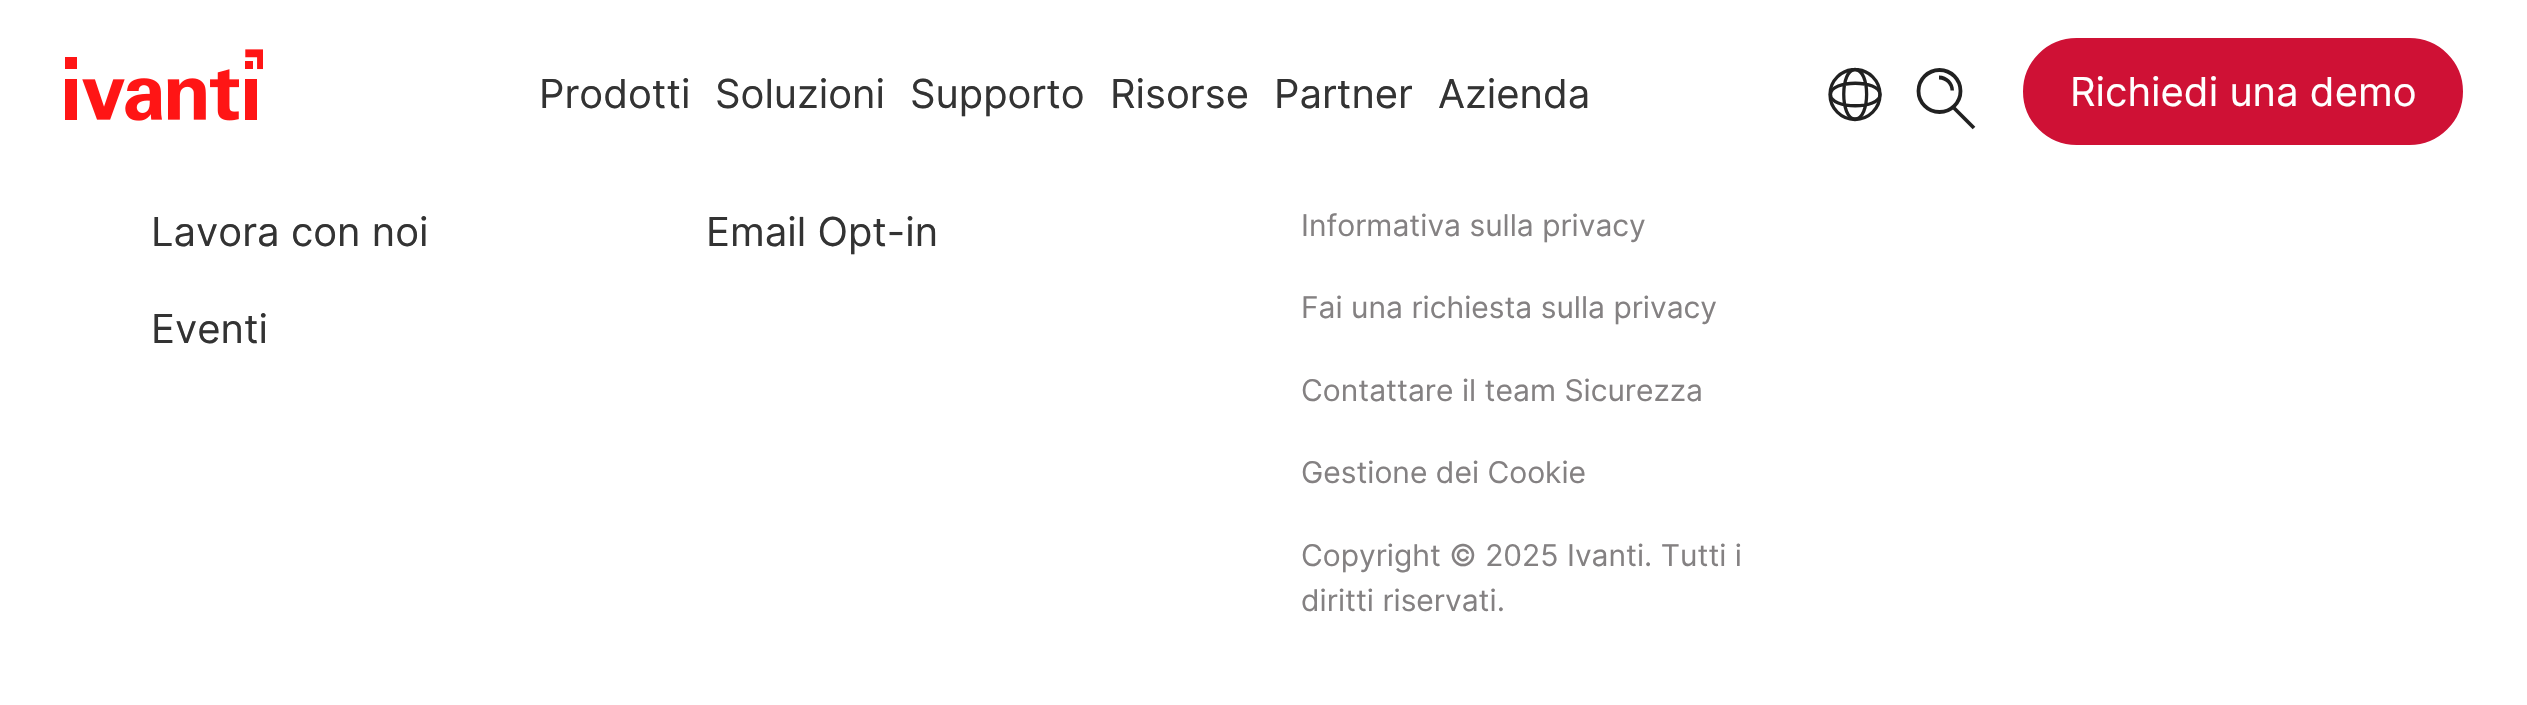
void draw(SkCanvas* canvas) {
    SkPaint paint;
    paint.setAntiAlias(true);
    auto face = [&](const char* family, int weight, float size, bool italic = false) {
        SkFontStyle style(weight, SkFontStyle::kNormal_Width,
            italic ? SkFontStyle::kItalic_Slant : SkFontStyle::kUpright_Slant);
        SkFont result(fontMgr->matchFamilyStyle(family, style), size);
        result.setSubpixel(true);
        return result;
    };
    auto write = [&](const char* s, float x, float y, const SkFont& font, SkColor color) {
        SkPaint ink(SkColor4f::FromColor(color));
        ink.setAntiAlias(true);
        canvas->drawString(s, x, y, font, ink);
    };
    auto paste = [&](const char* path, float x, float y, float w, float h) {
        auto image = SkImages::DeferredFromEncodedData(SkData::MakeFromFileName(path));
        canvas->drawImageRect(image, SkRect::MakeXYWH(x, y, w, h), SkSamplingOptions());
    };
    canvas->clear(SK_ColorWHITE);
    paste("pic1.png", 65, 49, 198, 72);
    auto kFont1 = face("Inter", 400, 40);
    write("Prodotti", 539, 108, kFont1, SkColorSetRGB(51, 51, 51));
    write("Soluzioni", 715, 108, kFont1, SkColorSetRGB(51, 51, 51));
    write("Supporto", 910, 108, kFont1, SkColorSetRGB(51, 51, 51));
    write("Risorse", 1110, 108, kFont1, SkColorSetRGB(51, 51, 51));
    write("Partner", 1274, 108, kFont1, SkColorSetRGB(51, 51, 51));
    write("Azienda", 1438, 108, kFont1, SkColorSetRGB(51, 51, 51));
    canvas->save();
    canvas->clipRect(SkRect::MakeXYWH(1828, 68, 55, 55));
    paint.setStyle(SkPaint::kStroke_Style);
    paint.setStrokeWidth(3.3f);
    paint.setColor(SkColorSetRGB(33, 33, 33));
    canvas->drawCircle(1855, 94.5f, 25, paint);
    canvas->restore();
    canvas->drawPath(SkPathBuilder().moveTo(1855, 69.5f).cubicTo(1870.5f, 69.5f, 1870.5f, 119, 1855, 119).cubicTo(1840, 119, 1840, 69.5f, 1855, 69.5f).close().moveTo(1880, 94.5f).cubicTo(1880, 109.5f, 1830.5f, 109.5f, 1830.5f, 94.5f).cubicTo(1830.5f, 79.5f, 1880, 79.5f, 1880, 94.5f).close().detach(), paint);
    paint.setStrokeWidth(3.8f);
    canvas->drawCircle(1939.5f, 91, 21, paint);
    paint.setStyle(SkPaint::kFill_Style);
    canvas->drawPath(SkPathBuilder().moveTo(1939, 75.5f).cubicTo(1947.5f, 75.5f, 1954, 82.5f, 1954, 90.5f).lineTo(1950.5f, 90.5f).cubicTo(1950.5f, 84.5f, 1945.5f, 79.5f, 1939, 79.5f).close().detach(), paint);
    paint.setStyle(SkPaint::kStroke_Style);
    canvas->drawPath(SkPathBuilder().moveTo(1954, 108).lineTo(1974, 128).detach(), paint);
    paint.setStyle(SkPaint::kFill_Style);
    paint.setColor(SkColorSetRGB(207, 17, 53));
    canvas->drawRoundRect(SkRect::MakeXYWH(2025.5f, 40.5f, 435, 102), 51, 51, paint);
    paint.setStyle(SkPaint::kStroke_Style);
    paint.setStrokeWidth(5);
    canvas->drawRoundRect(SkRect::MakeXYWH(2025.5f, 40.5f, 435, 102), 51, 51, paint);
    write("Richiedi una demo", 2070, 106, kFont1, SK_ColorWHITE);
    write("Lavora con noi", 151, 246, kFont1, SkColorSetRGB(51, 51, 51));
    write("Email Opt-in", 706, 246, kFont1, SkColorSetRGB(51, 51, 51));
    write("Eventi", 151, 343, kFont1, SkColorSetRGB(51, 51, 51));
    auto kFont2 = face("Inter", 400, 30);
    write("Informativa sulla privacy", 1301, 236, kFont2, SkColorSetRGB(132, 129, 130));
    write("Fai una richiesta sulla privacy", 1301, 318, kFont2, SkColorSetRGB(132, 129, 130));
    write("Contattare il team Sicurezza", 1301, 401, kFont2, SkColorSetRGB(132, 129, 130));
    write("Gestione dei Cookie", 1301, 483, kFont2, SkColorSetRGB(132, 129, 130));
    write("Copyright © 2025 Ivanti. Tutti i", 1301, 566, kFont2, SkColorSetRGB(132, 129, 130));
    write("diritti riservati.", 1301, 611, kFont2, SkColorSetRGB(132, 129, 130));
}
